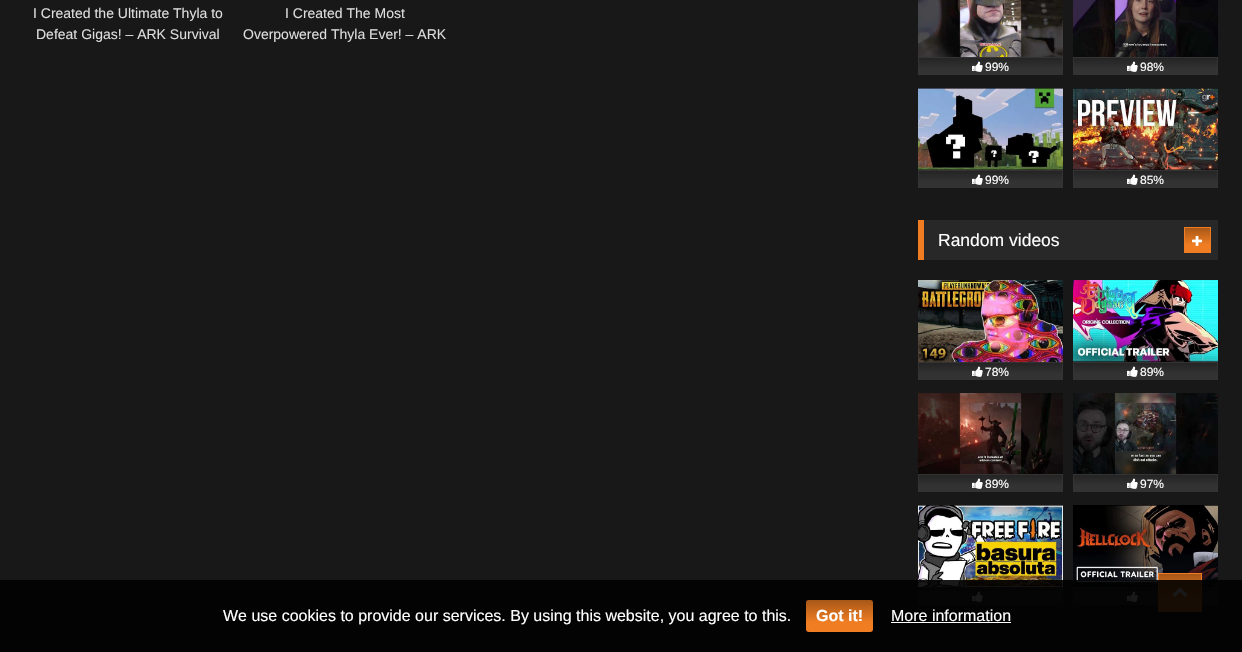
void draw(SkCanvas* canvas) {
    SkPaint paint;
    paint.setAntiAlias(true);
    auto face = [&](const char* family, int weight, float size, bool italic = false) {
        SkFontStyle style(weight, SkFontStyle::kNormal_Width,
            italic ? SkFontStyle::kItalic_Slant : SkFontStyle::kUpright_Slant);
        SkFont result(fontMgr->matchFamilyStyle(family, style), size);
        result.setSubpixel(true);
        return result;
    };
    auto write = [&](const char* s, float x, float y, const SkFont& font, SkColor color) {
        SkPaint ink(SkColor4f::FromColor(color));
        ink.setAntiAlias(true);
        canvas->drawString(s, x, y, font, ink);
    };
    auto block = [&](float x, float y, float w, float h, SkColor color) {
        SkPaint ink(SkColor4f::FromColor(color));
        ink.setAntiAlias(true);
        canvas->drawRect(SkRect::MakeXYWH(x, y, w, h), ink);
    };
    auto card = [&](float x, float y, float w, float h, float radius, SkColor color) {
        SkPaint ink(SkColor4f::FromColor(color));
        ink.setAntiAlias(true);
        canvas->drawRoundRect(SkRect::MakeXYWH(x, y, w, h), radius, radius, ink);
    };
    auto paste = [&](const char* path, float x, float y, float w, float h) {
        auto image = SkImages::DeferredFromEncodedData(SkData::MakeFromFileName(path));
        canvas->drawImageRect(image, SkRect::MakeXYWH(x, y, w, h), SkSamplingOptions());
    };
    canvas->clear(SkColorSetRGB(24, 24, 24));
    auto kFont1 = face("Liberation Sans", 400, 14);
    write("I Created the Ultimate Thyla to", 33, 18, kFont1, SkColorSetRGB(221, 221, 221));
    write("Defeat Gigas! – ARK Survival", 36, 39, kFont1, SkColorSetRGB(221, 221, 221));
    write("I Created The Most", 285, 18, kFont1, SkColorSetRGB(221, 221, 221));
    write("Overpowered Thyla Ever! – ARK", 243, 39, kFont1, SkColorSetRGB(221, 221, 221));
    paste("pic1.png", 918, 0, 145, 57);
    {
        const SkColor colors[] = {SkColorSetRGB(36, 36, 36), SkColorSetRGB(51, 51, 51)};
        const float stops[] = {0, 0.7f};
        const SkPoint ends[] = {{991, 58}, {991, 74}};
        paint.setShader(SkGradientShader::MakeLinear(ends, colors, stops, 2, SkTileMode::kClamp));
        paint.setAlpha(255);
    }
    canvas->drawRect(SkRect::MakeXYWH(919, 58, 143, 16), paint);
    paint.setStyle(SkPaint::kStroke_Style);
    paint.setStrokeWidth(1);
    paint.setShader(nullptr);
    paint.setColor(SkColorSetRGB(51, 51, 51));
    canvas->drawRect(SkRect::MakeXYWH(918.5f, 57.5f, 144, 17), paint);
    paste("pic2.png", 972, 61, 11, 11);
    auto kFont2 = face("Liberation Sans", 400, 12);
    write("99%", 985, 71, kFont2, SK_ColorWHITE);
    paste("pic3.png", 1073, 0, 145, 57);
    paint.setStyle(SkPaint::kFill_Style);
    {
        const SkColor colors[] = {SkColorSetRGB(36, 36, 36), SkColorSetRGB(51, 51, 51)};
        const float stops[] = {0, 0.7f};
        const SkPoint ends[] = {{1146, 58}, {1146, 74}};
        paint.setShader(SkGradientShader::MakeLinear(ends, colors, stops, 2, SkTileMode::kClamp));
        paint.setAlpha(255);
    }
    canvas->drawRect(SkRect::MakeXYWH(1074, 58, 143, 16), paint);
    paint.setStyle(SkPaint::kStroke_Style);
    paint.setShader(nullptr);
    paint.setColor(SkColorSetRGB(51, 51, 51));
    canvas->drawRect(SkRect::MakeXYWH(1073.5f, 57.5f, 144, 17), paint);
    paste("pic2.png", 1127, 61, 11, 11);
    write("98%", 1140, 71, kFont2, SK_ColorWHITE);
    paste("pic4.png", 918, 88, 145, 82);
    paint.setStyle(SkPaint::kFill_Style);
    {
        const SkColor colors[] = {SkColorSetRGB(36, 36, 36), SkColorSetRGB(51, 51, 51)};
        const float stops[] = {0, 0.7f};
        const SkPoint ends[] = {{991, 171}, {991, 187}};
        paint.setShader(SkGradientShader::MakeLinear(ends, colors, stops, 2, SkTileMode::kClamp));
        paint.setAlpha(255);
    }
    canvas->drawRect(SkRect::MakeXYWH(919, 171, 143, 16), paint);
    paint.setStyle(SkPaint::kStroke_Style);
    paint.setShader(nullptr);
    paint.setColor(SkColorSetRGB(51, 51, 51));
    canvas->drawRect(SkRect::MakeXYWH(918.5f, 170.5f, 144, 17), paint);
    paste("pic2.png", 972, 174, 11, 11);
    write("99%", 985, 184, kFont2, SK_ColorWHITE);
    paste("pic5.png", 1073, 88, 145, 82);
    paint.setStyle(SkPaint::kFill_Style);
    {
        const SkColor colors[] = {SkColorSetRGB(36, 36, 36), SkColorSetRGB(51, 51, 51)};
        const float stops[] = {0, 0.7f};
        const SkPoint ends[] = {{1146, 171}, {1146, 187}};
        paint.setShader(SkGradientShader::MakeLinear(ends, colors, stops, 2, SkTileMode::kClamp));
        paint.setAlpha(255);
    }
    canvas->drawRect(SkRect::MakeXYWH(1074, 171, 143, 16), paint);
    paint.setStyle(SkPaint::kStroke_Style);
    paint.setShader(nullptr);
    paint.setColor(SkColorSetRGB(51, 51, 51));
    canvas->drawRect(SkRect::MakeXYWH(1073.5f, 170.5f, 144, 17), paint);
    paste("pic2.png", 1127, 174, 11, 11);
    write("85%", 1140, 184, kFont2, SK_ColorWHITE);
    block(924, 220, 294, 40, SkColorSetRGB(40, 40, 40));
    block(918, 220, 6, 40, SkColorSetRGB(240, 125, 34));
    auto kFont3 = face("Liberation Sans", 400, 17.5f);
    write("Random videos", 938, 246, kFont3, SK_ColorWHITE);
    paint.setStyle(SkPaint::kFill_Style);
    {
        const SkColor colors[] = {SkColorSetRGB(168, 88, 24), SkColorSetRGB(240, 125, 34)};
        const float stops[] = {0, 0.7f};
        const SkPoint ends[] = {{1198, 228}, {1198, 252}};
        paint.setShader(SkGradientShader::MakeLinear(ends, colors, stops, 2, SkTileMode::kClamp));
        paint.setAlpha(255);
    }
    canvas->drawRect(SkRect::MakeXYWH(1185, 228, 25, 24), paint);
    paint.setStyle(SkPaint::kStroke_Style);
    paint.setShader(nullptr);
    paint.setColor(SkColorSetRGB(240, 125, 34));
    canvas->drawRect(SkRect::MakeXYWH(1184.5f, 227.5f, 26, 25), paint);
    paste("pic6.png", 1192, 235, 11, 11);
    paste("pic7.png", 918, 280, 145, 82);
    paint.setStyle(SkPaint::kFill_Style);
    {
        const SkColor colors[] = {SkColorSetRGB(36, 36, 36), SkColorSetRGB(51, 51, 51)};
        const float stops[] = {0, 0.7f};
        const SkPoint ends[] = {{991, 363}, {991, 379}};
        paint.setShader(SkGradientShader::MakeLinear(ends, colors, stops, 2, SkTileMode::kClamp));
        paint.setAlpha(255);
    }
    canvas->drawRect(SkRect::MakeXYWH(919, 363, 143, 16), paint);
    paint.setStyle(SkPaint::kStroke_Style);
    paint.setShader(nullptr);
    paint.setColor(SkColorSetRGB(51, 51, 51));
    canvas->drawRect(SkRect::MakeXYWH(918.5f, 362.5f, 144, 17), paint);
    paste("pic2.png", 972, 366, 11, 11);
    write("78%", 985, 376, kFont2, SK_ColorWHITE);
    paste("pic8.png", 1073, 280, 145, 82);
    paint.setStyle(SkPaint::kFill_Style);
    {
        const SkColor colors[] = {SkColorSetRGB(36, 36, 36), SkColorSetRGB(51, 51, 51)};
        const float stops[] = {0, 0.7f};
        const SkPoint ends[] = {{1146, 363}, {1146, 379}};
        paint.setShader(SkGradientShader::MakeLinear(ends, colors, stops, 2, SkTileMode::kClamp));
        paint.setAlpha(255);
    }
    canvas->drawRect(SkRect::MakeXYWH(1074, 363, 143, 16), paint);
    paint.setStyle(SkPaint::kStroke_Style);
    paint.setShader(nullptr);
    paint.setColor(SkColorSetRGB(51, 51, 51));
    canvas->drawRect(SkRect::MakeXYWH(1073.5f, 362.5f, 144, 17), paint);
    paste("pic2.png", 1127, 366, 11, 11);
    write("89%", 1140, 376, kFont2, SK_ColorWHITE);
    paste("pic9.png", 918, 393, 145, 81);
    paint.setStyle(SkPaint::kFill_Style);
    {
        const SkColor colors[] = {SkColorSetRGB(36, 36, 36), SkColorSetRGB(51, 51, 51)};
        const float stops[] = {0, 0.7f};
        const SkPoint ends[] = {{991, 475}, {991, 491}};
        paint.setShader(SkGradientShader::MakeLinear(ends, colors, stops, 2, SkTileMode::kClamp));
        paint.setAlpha(255);
    }
    canvas->drawRect(SkRect::MakeXYWH(919, 475, 143, 16), paint);
    paint.setStyle(SkPaint::kStroke_Style);
    paint.setShader(nullptr);
    paint.setColor(SkColorSetRGB(51, 51, 51));
    canvas->drawRect(SkRect::MakeXYWH(918.5f, 474.5f, 144, 17), paint);
    paste("pic2.png", 972, 478, 11, 11);
    write("89%", 985, 488, kFont2, SK_ColorWHITE);
    paste("pic10.png", 1073, 393, 145, 81);
    paint.setStyle(SkPaint::kFill_Style);
    {
        const SkColor colors[] = {SkColorSetRGB(36, 36, 36), SkColorSetRGB(51, 51, 51)};
        const float stops[] = {0, 0.7f};
        const SkPoint ends[] = {{1146, 475}, {1146, 491}};
        paint.setShader(SkGradientShader::MakeLinear(ends, colors, stops, 2, SkTileMode::kClamp));
        paint.setAlpha(255);
    }
    canvas->drawRect(SkRect::MakeXYWH(1074, 475, 143, 16), paint);
    paint.setStyle(SkPaint::kStroke_Style);
    paint.setShader(nullptr);
    paint.setColor(SkColorSetRGB(51, 51, 51));
    canvas->drawRect(SkRect::MakeXYWH(1073.5f, 474.5f, 144, 17), paint);
    paste("pic2.png", 1127, 478, 11, 11);
    write("97%", 1140, 488, kFont2, SK_ColorWHITE);
    paste("pic11.png", 918, 505, 145, 82);
    paint.setStyle(SkPaint::kFill_Style);
    {
        const SkColor colors[] = {SkColorSetRGB(36, 36, 36), SkColorSetRGB(51, 51, 51)};
        const float stops[] = {0, 0.7f};
        const SkPoint ends[] = {{991, 588}, {991, 604}};
        paint.setShader(SkGradientShader::MakeLinear(ends, colors, stops, 2, SkTileMode::kClamp));
        paint.setAlpha(255);
    }
    canvas->drawRect(SkRect::MakeXYWH(919, 588, 143, 16), paint);
    paint.setStyle(SkPaint::kStroke_Style);
    paint.setShader(nullptr);
    paint.setColor(SkColorSetRGB(51, 51, 51));
    canvas->drawRect(SkRect::MakeXYWH(918.5f, 587.5f, 144, 17), paint);
    paste("pic2.png", 972, 591, 11, 11);
    paste("pic12.png", 1073, 505, 145, 82);
    paint.setStyle(SkPaint::kFill_Style);
    {
        const SkColor colors[] = {SkColorSetRGB(36, 36, 36), SkColorSetRGB(51, 51, 51)};
        const float stops[] = {0, 0.7f};
        const SkPoint ends[] = {{1146, 588}, {1146, 604}};
        paint.setShader(SkGradientShader::MakeLinear(ends, colors, stops, 2, SkTileMode::kClamp));
        paint.setAlpha(255);
    }
    canvas->drawRect(SkRect::MakeXYWH(1074, 588, 143, 16), paint);
    paint.setStyle(SkPaint::kStroke_Style);
    paint.setShader(nullptr);
    paint.setColor(SkColorSetRGB(51, 51, 51));
    canvas->drawRect(SkRect::MakeXYWH(1073.5f, 587.5f, 144, 17), paint);
    paste("pic2.png", 1127, 591, 11, 11);
    paint.setStyle(SkPaint::kFill_Style);
    paint.setColor(SkColorSetARGB(31, 0, 0, 0));
    paint.setMaskFilter(SkMaskFilter::MakeBlur(kNormal_SkBlurStyle, 3));
    canvas->drawRect(SkRect::MakeXYWH(1158, 574, 44, 39), paint);
    paint.setMaskFilter(nullptr);
    {
        const SkColor colors[] = {SkColorSetRGB(168, 88, 24), SkColorSetRGB(240, 125, 34)};
        const float stops[] = {0, 0.7f};
        const SkPoint ends[] = {{1180, 574}, {1180, 611}};
        paint.setShader(SkGradientShader::MakeLinear(ends, colors, stops, 2, SkTileMode::kClamp));
        paint.setAlpha(255);
    }
    canvas->drawRect(SkRect::MakeXYWH(1159, 574, 42, 37), paint);
    paint.setStyle(SkPaint::kStroke_Style);
    paint.setShader(nullptr);
    paint.setColor(SkColorSetRGB(240, 125, 34));
    canvas->drawRect(SkRect::MakeXYWH(1158.5f, 573.5f, 43, 38), paint);
    paste("pic13.png", 1172, 587, 16, 10);
    block(0, 580, 1242, 72, SkColorSetARGB(230, 0, 0, 0));
    auto kFont4 = face("Liberation Sans", 400, 16);
    write("We use cookies to provide our services. By using this website, you agree to this.", 223, 621, kFont4, SK_ColorWHITE);
    card(806, 600, 67, 32, 3, SkColorSetRGB(240, 125, 34));
    paint.setStyle(SkPaint::kFill_Style);
    {
        const SkColor colors[] = {SkColorSetARGB(77, 0, 0, 0), SkColorSetARGB(0, 0, 0, 0)};
        const float stops[] = {0, 0.7f};
        const SkPoint ends[] = {{840, 600}, {840, 632}};
        paint.setShader(SkGradientShader::MakeLinear(ends, colors, stops, 2, SkTileMode::kClamp));
        paint.setAlpha(255);
    }
    canvas->drawRoundRect(SkRect::MakeXYWH(806, 600, 67, 32), 3, 3, paint);
    auto kFont5 = face("Liberation Sans", 700, 16);
    write("Got it!", 816, 621, kFont5, SK_ColorWHITE);
    write("More information", 891, 621, kFont4, SK_ColorWHITE);
    block(891, 622, 120, 1, SK_ColorWHITE);
}
